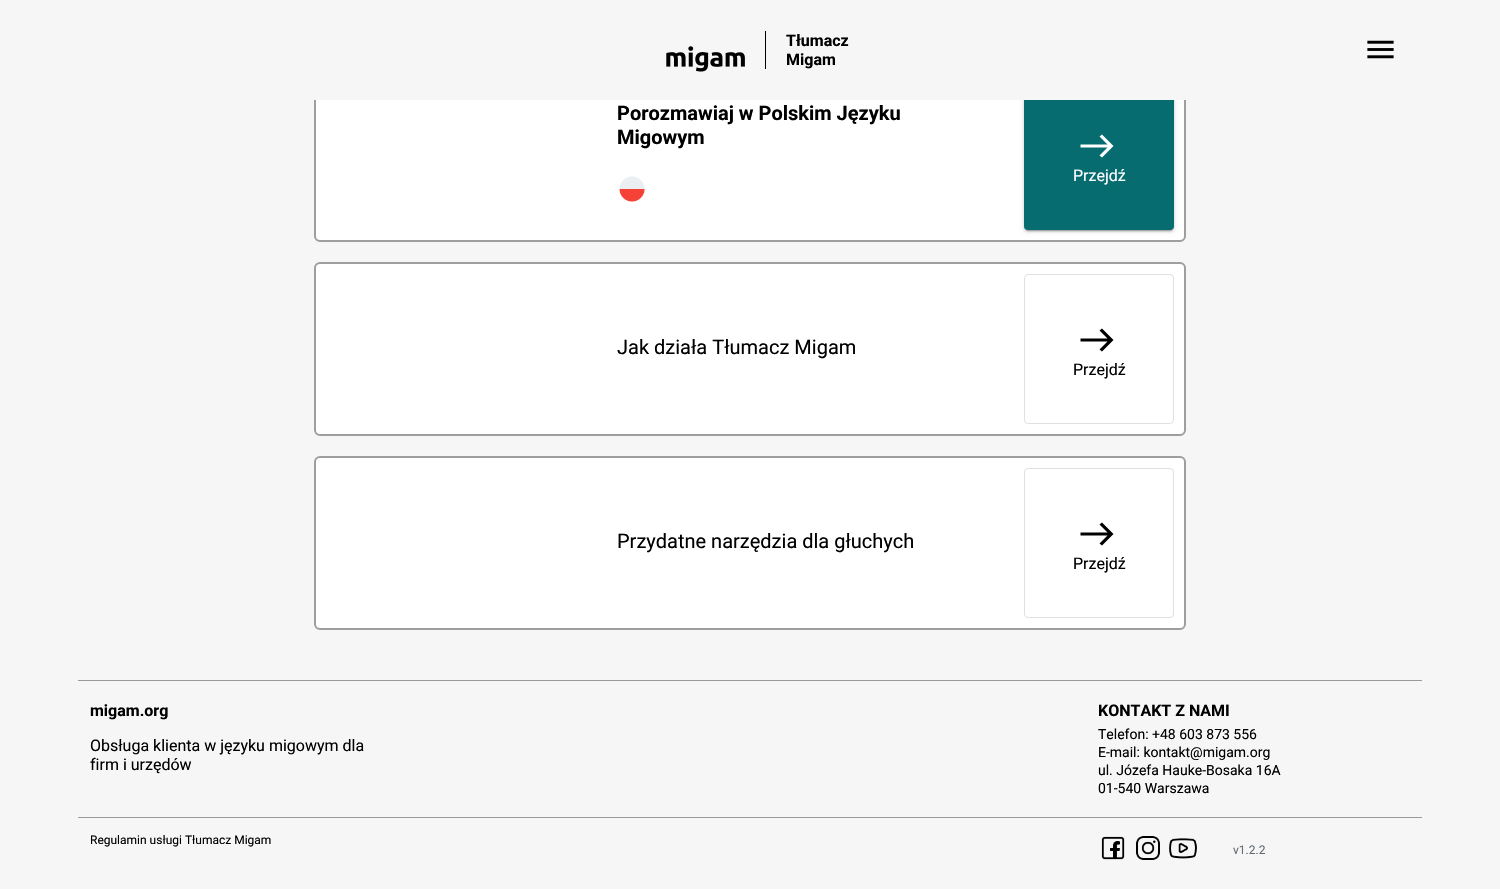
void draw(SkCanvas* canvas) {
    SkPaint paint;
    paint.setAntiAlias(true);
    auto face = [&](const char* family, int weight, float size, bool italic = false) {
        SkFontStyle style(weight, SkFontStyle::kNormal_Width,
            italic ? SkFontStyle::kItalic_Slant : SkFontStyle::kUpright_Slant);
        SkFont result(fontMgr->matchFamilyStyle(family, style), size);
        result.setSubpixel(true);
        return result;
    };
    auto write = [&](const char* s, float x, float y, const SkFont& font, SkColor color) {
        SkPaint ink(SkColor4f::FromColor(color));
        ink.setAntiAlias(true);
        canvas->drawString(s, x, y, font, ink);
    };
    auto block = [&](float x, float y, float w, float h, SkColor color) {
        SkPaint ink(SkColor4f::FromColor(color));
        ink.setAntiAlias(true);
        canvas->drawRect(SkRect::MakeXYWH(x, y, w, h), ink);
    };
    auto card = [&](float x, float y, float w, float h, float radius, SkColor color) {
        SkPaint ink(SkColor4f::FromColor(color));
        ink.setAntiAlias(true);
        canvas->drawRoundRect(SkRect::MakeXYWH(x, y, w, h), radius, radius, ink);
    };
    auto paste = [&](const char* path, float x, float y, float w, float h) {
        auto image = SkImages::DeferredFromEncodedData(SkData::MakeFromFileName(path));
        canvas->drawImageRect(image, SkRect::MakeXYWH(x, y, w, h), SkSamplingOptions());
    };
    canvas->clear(SkColorSetRGB(246, 246, 246));
    paint.setColor(SK_ColorWHITE);
    canvas->drawRoundRect(SkRect::MakeXYWH(315, 69, 870, 172), 5, 5, paint);
    paint.setStyle(SkPaint::kStroke_Style);
    paint.setStrokeWidth(2);
    paint.setColor(SkColorSetRGB(158, 158, 158));
    canvas->drawRoundRect(SkRect::MakeXYWH(315, 69, 870, 172), 5, 5, paint);
    paint.setStyle(SkPaint::kFill_Style);
    paint.setColor(SkColorSetARGB(31, 0, 0, 0));
    paint.setMaskFilter(SkMaskFilter::MakeBlur(kNormal_SkBlurStyle, 2.5f));
    canvas->drawRoundRect(SkRect::MakeXYWH(1024, 81, 150, 150), 4, 4, paint);
    paint.setMaskFilter(nullptr);
    paint.setColor(SkColorSetARGB(36, 0, 0, 0));
    paint.setMaskFilter(SkMaskFilter::MakeBlur(kNormal_SkBlurStyle, 1));
    canvas->drawRoundRect(SkRect::MakeXYWH(1024, 82, 150, 150), 4, 4, paint);
    paint.setMaskFilter(nullptr);
    paint.setColor(SkColorSetARGB(51, 0, 0, 0));
    paint.setMaskFilter(SkMaskFilter::MakeBlur(kNormal_SkBlurStyle, 0.5f));
    canvas->drawRoundRect(SkRect::MakeXYWH(1026, 85, 146, 146), 2, 2, paint);
    paint.setMaskFilter(nullptr);
    card(1024, 80, 150, 150, 4, SkColorSetRGB(7, 108, 112));
    block(314, 68, 872, 32, SkColorSetRGB(246, 246, 246));
    paste("pic1.png", 666, 46, 79, 26);
    block(765, 31, 1, 38, SK_ColorBLACK);
    auto kFont1 = face("Roboto", 700, 16);
    write("Tłumacz", 786, 46, kFont1, SK_ColorBLACK);
    write("Migam", 786, 65, kFont1, SK_ColorBLACK);
    paste("pic2.png", 1367, 40, 27, 19);
    auto kFont2 = face("Roboto", 700, 20);
    write("Porozmawiaj w Polskim Języku", 617, 120, kFont2, SK_ColorBLACK);
    write("Migowym", 617, 144, kFont2, SK_ColorBLACK);
    paste("pic3.png", 619, 176, 26, 26);
    paint.setColor(SK_ColorWHITE);
    canvas->drawPath(SkPathBuilder().moveTo(1102, 134.5f).lineTo(1099.5f, 136.5f).lineTo(1107.5f, 144.5f).lineTo(1080.5f, 144.5f).lineTo(1080.5f, 147.5f).lineTo(1107.5f, 147.5f).lineTo(1099.5f, 155.5f).lineTo(1102, 157.5f).lineTo(1113.5f, 146).close().detach(), paint);
    auto kFont3 = face("Roboto", 400, 16);
    write("Przejdź", 1073, 181, kFont3, SK_ColorWHITE);
    canvas->drawRoundRect(SkRect::MakeXYWH(315, 263, 870, 172), 5, 5, paint);
    paint.setStyle(SkPaint::kStroke_Style);
    paint.setColor(SkColorSetRGB(158, 158, 158));
    canvas->drawRoundRect(SkRect::MakeXYWH(315, 263, 870, 172), 5, 5, paint);
    auto kFont4 = face("Roboto", 400, 20);
    write("Jak działa Tłumacz Migam", 617, 354, kFont4, SK_ColorBLACK);
    paint.setStrokeWidth(1);
    paint.setColor(SkColorSetRGB(224, 224, 224));
    canvas->drawRoundRect(SkRect::MakeXYWH(1024.5f, 274.5f, 149, 149), 3.5f, 3.5f, paint);
    paint.setStyle(SkPaint::kFill_Style);
    paint.setColor(SK_ColorBLACK);
    canvas->drawPath(SkPathBuilder().moveTo(1102, 328.5f).lineTo(1099.5f, 330.5f).lineTo(1107.5f, 338.5f).lineTo(1080.5f, 338.5f).lineTo(1080.5f, 341.5f).lineTo(1107.5f, 341.5f).lineTo(1099.5f, 349.5f).lineTo(1102, 351.5f).lineTo(1113.5f, 340).close().detach(), paint);
    write("Przejdź", 1073, 375, kFont3, SK_ColorBLACK);
    paint.setColor(SK_ColorWHITE);
    canvas->drawRoundRect(SkRect::MakeXYWH(315, 457, 870, 172), 5, 5, paint);
    paint.setStyle(SkPaint::kStroke_Style);
    paint.setStrokeWidth(2);
    paint.setColor(SkColorSetRGB(158, 158, 158));
    canvas->drawRoundRect(SkRect::MakeXYWH(315, 457, 870, 172), 5, 5, paint);
    write("Przydatne narzędzia dla głuchych", 617, 548, kFont4, SK_ColorBLACK);
    paint.setStrokeWidth(1);
    paint.setColor(SkColorSetRGB(224, 224, 224));
    canvas->drawRoundRect(SkRect::MakeXYWH(1024.5f, 468.5f, 149, 149), 3.5f, 3.5f, paint);
    paint.setStyle(SkPaint::kFill_Style);
    paint.setColor(SK_ColorBLACK);
    canvas->drawPath(SkPathBuilder().moveTo(1102, 522.5f).lineTo(1099.5f, 524.5f).lineTo(1107.5f, 532.5f).lineTo(1080.5f, 532.5f).lineTo(1080.5f, 535.5f).lineTo(1107.5f, 535.5f).lineTo(1099.5f, 543.5f).lineTo(1102, 545.5f).lineTo(1113.5f, 534).close().detach(), paint);
    write("Przejdź", 1073, 569, kFont3, SK_ColorBLACK);
    block(78, 680, 1344, 1, SkColorSetRGB(153, 153, 153));
    block(78, 817, 1344, 1, SkColorSetRGB(153, 153, 153));
    write("migam.org", 90, 716, kFont1, SK_ColorBLACK);
    write("Obsługa klienta w języku migowym dla", 90, 751, kFont3, SK_ColorBLACK);
    write("firm i urzędów", 90, 770, kFont3, SK_ColorBLACK);
    write("KONTAKT Z NAMI", 1098, 716, kFont1, SK_ColorBLACK);
    auto kFont5 = face("Roboto", 400, 14);
    write("Telefon: +48 603 873 556", 1098, 739, kFont5, SK_ColorBLACK);
    write("E-mail: kontakt@migam.org", 1098, 757, kFont5, SK_ColorBLACK);
    write("ul. Józefa Hauke-Bosaka 16A", 1098, 775, kFont5, SK_ColorBLACK);
    write("01-540 Warszawa", 1098, 793, kFont5, SK_ColorBLACK);
    auto kFont6 = face("Roboto", 400, 12);
    write("Regulamin usługi Tłumacz Migam", 90, 844, kFont6, SK_ColorBLACK);
    paste("pic4.png", 1101, 836, 24, 24);
    paste("pic5.png", 1136, 836, 24, 24);
    paste("pic6.png", 1169, 838, 28, 21);
    write("v1.2.2", 1233, 854, kFont6, SkColorSetRGB(99, 108, 114));
}
